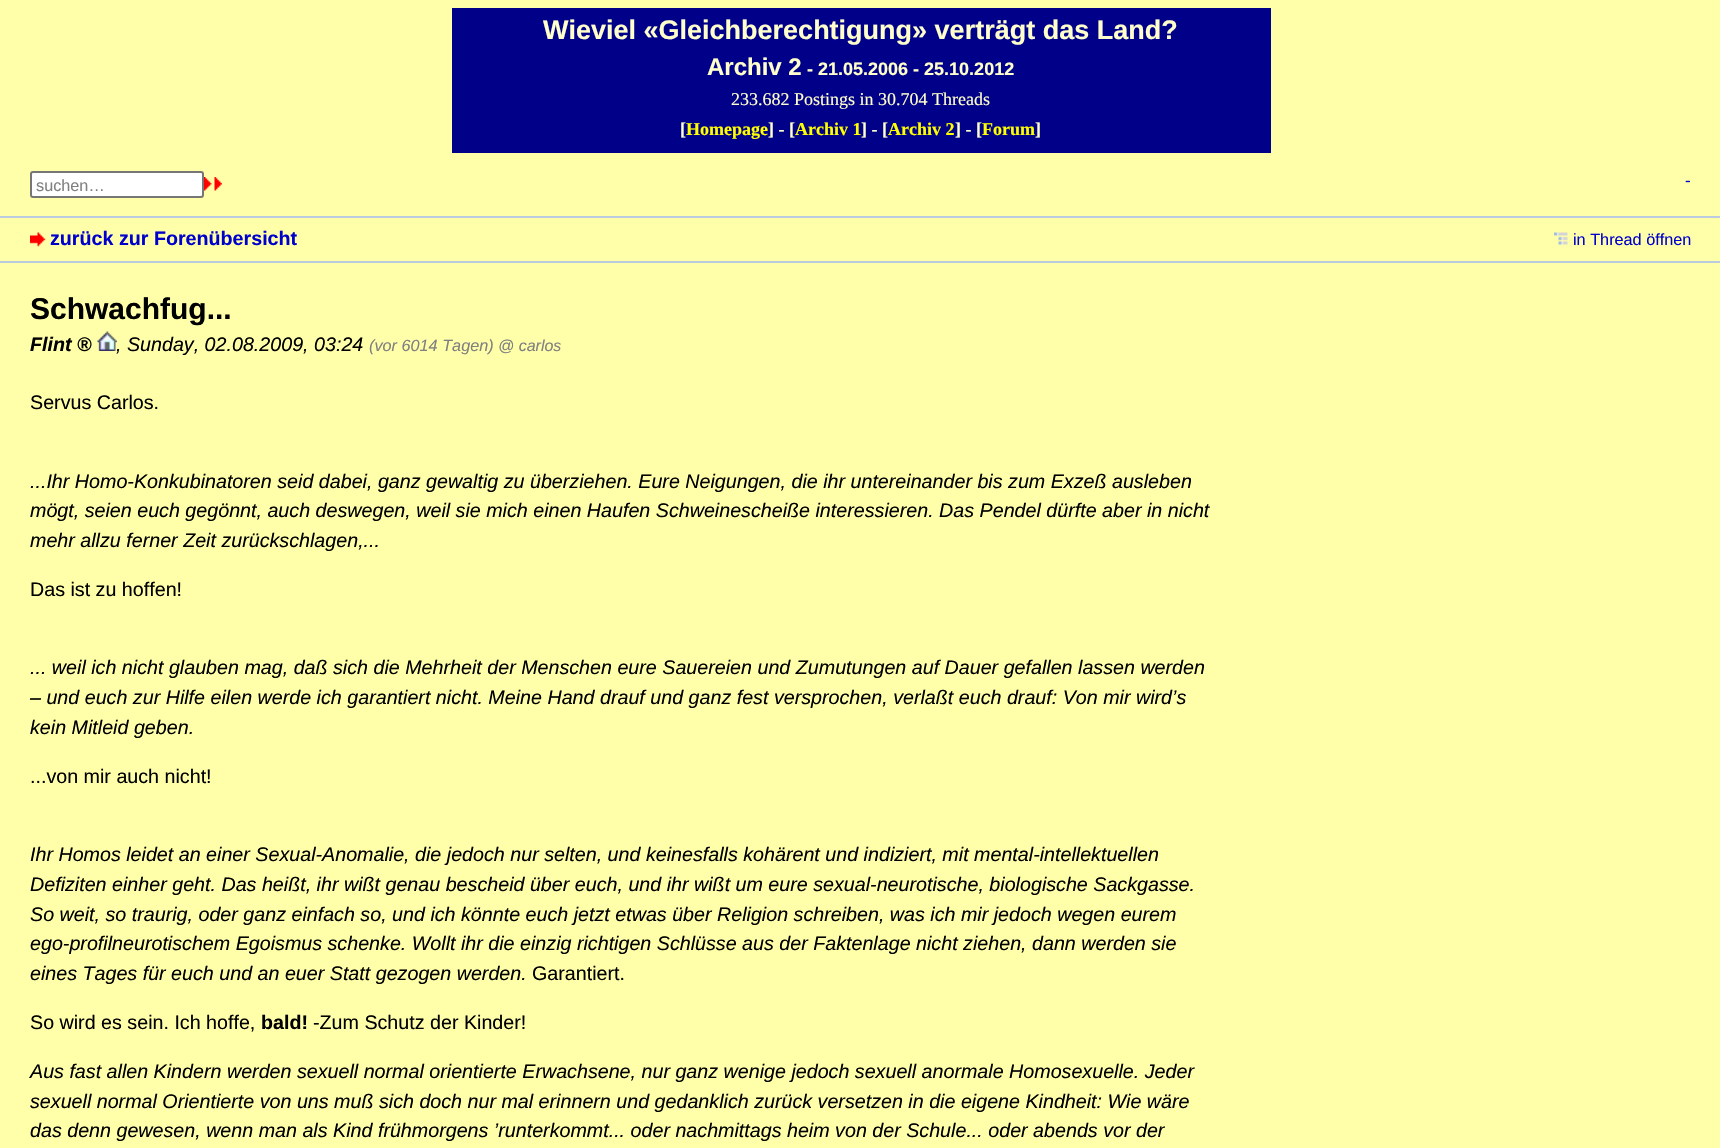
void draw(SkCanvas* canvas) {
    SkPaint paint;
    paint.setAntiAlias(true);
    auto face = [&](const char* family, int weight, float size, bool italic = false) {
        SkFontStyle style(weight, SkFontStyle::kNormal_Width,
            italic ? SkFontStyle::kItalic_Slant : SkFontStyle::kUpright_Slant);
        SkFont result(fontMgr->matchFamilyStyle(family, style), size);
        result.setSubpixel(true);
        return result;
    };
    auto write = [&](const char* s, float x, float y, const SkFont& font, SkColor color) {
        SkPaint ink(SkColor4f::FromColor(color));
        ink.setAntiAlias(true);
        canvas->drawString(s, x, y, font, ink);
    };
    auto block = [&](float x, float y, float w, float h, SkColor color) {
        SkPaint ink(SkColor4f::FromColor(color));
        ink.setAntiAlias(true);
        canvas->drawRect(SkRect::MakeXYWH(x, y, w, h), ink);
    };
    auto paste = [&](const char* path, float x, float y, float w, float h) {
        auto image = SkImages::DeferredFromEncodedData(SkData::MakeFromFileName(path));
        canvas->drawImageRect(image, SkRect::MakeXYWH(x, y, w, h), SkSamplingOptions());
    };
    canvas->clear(SkColorSetRGB(255, 255, 170));
    block(452, 8, 819, 145, SkColorSetRGB(0, 0, 136));
    auto kFont1 = face("Liberation Sans", 700, 27);
    write("Wieviel «Gleichberechtigung» verträgt das Land?", 543, 39, kFont1, SkColorSetRGB(255, 255, 204));
    auto kFont2 = face("Liberation Sans", 700, 24);
    write("Archiv 2", 707, 75, kFont2, SkColorSetRGB(255, 255, 204));
    auto kFont3 = face("Liberation Sans", 700, 18);
    write("- 21.05.2006 - 25.10.2012", 807, 75, kFont3, SkColorSetRGB(255, 255, 204));
    auto kFont4 = face("Liberation Serif", 400, 18);
    write("233.682 Postings in 30.704 Threads", 731, 105, kFont4, SkColorSetRGB(255, 255, 204));
    auto kFont5 = face("Liberation Serif", 700, 18);
    write("[", 680, 135, kFont5, SkColorSetRGB(255, 255, 204));
    write("Homepage", 686, 135, kFont5, SkColorSetRGB(255, 255, 0));
    write("] - [", 768, 135, kFont5, SkColorSetRGB(255, 255, 204));
    write("Archiv 1", 795, 135, kFont5, SkColorSetRGB(255, 255, 0));
    write("] - [", 861, 135, kFont5, SkColorSetRGB(255, 255, 204));
    write("Archiv 2", 888, 135, kFont5, SkColorSetRGB(255, 255, 0));
    write("] - [", 955, 135, kFont5, SkColorSetRGB(255, 255, 204));
    write("Forum", 982, 135, kFont5, SkColorSetRGB(255, 255, 0));
    write("]", 1035, 135, kFont5, SkColorSetRGB(255, 255, 204));
    paint.setColor(SK_ColorWHITE);
    canvas->drawRoundRect(SkRect::MakeXYWH(31, 172, 172, 25), 2, 2, paint);
    paint.setStyle(SkPaint::kStroke_Style);
    paint.setStrokeWidth(2);
    paint.setColor(SkColorSetRGB(118, 118, 118));
    canvas->drawRoundRect(SkRect::MakeXYWH(31, 172, 172, 25), 2, 2, paint);
    auto kFont6 = face("Liberation Sans", 400, 16.25f);
    write("suchen…", 36, 191, kFont6, SkColorSetRGB(128, 128, 128));
    paste("pic1.png", 204, 177, 18, 14);
    auto kFont7 = face("Liberation Sans", 400, 17);
    write("-", 1685, 186, kFont7, SkColorSetRGB(0, 0, 204));
    block(0, 216, 1720, 2, SkColorSetRGB(186, 203, 223));
    block(0, 261, 1720, 2, SkColorSetRGB(186, 203, 223));
    paste("pic2.png", 30, 232, 16, 15);
    auto kFont8 = face("Liberation Sans", 700, 19.68f);
    write("zurück zur Forenübersicht", 50, 245, kFont8, SkColorSetRGB(0, 0, 204));
    paste("pic3.png", 1554, 232, 14, 13);
    write("in Thread öffnen", 1573, 245, kFont6, SkColorSetRGB(0, 0, 204));
    auto kFont9 = face("Liberation Sans", 700, 30);
    write("Schwachfug...", 30, 319, kFont9, SK_ColorBLACK);
    auto kFont10 = face("Liberation Sans", 700, 19.68f, true);
    write("Flint ®", 30, 351, kFont10, SK_ColorBLACK);
    paste("pic4.png", 97, 331, 20, 20);
    auto kFont11 = face("Liberation Sans", 400, 19.68f, true);
    write(", Sunday, 02.08.2009, 03:24", 116, 351, kFont11, SK_ColorBLACK);
    auto kFont12 = face("Liberation Sans", 400, 16.25f, true);
    write("(vor 6014 Tagen)", 369, 351, kFont12, SkColorSetRGB(128, 128, 128));
    auto kFont13 = face("Liberation Sans", 400, 16, true);
    write("@ carlos", 498, 351, kFont13, SkColorSetRGB(128, 128, 128));
    auto kFont14 = face("Liberation Sans", 400, 19.68f);
    write("Servus Carlos.", 30, 409, kFont14, SK_ColorBLACK);
    write("...Ihr Homo-Konkubinatoren seid dabei, ganz gewaltig zu überziehen. Eure Neigungen, die ihr untereinander bis zum Exzeß ausleben", 30, 488, kFont11, SK_ColorBLACK);
    write("mögt, seien euch gegönnt, auch deswegen, weil sie mich einen Haufen Schweinescheiße interessieren. Das Pendel dürfte aber in nicht", 30, 517, kFont11, SK_ColorBLACK);
    write("mehr allzu ferner Zeit zurückschlagen,...", 30, 547, kFont11, SK_ColorBLACK);
    write("Das ist zu hoffen!", 30, 596, kFont14, SK_ColorBLACK);
    write("... weil ich nicht glauben mag, daß sich die Mehrheit der Menschen eure Sauereien und Zumutungen auf Dauer gefallen lassen werden", 30, 674, kFont11, SK_ColorBLACK);
    write("– und euch zur Hilfe eilen werde ich garantiert nicht. Meine Hand drauf und ganz fest versprochen, verlaßt euch drauf: Von mir wird’s", 30, 704, kFont11, SK_ColorBLACK);
    write("kein Mitleid geben.", 30, 734, kFont11, SK_ColorBLACK);
    write("...von mir auch nicht!", 30, 783, kFont14, SK_ColorBLACK);
    write("Ihr Homos leidet an einer Sexual-Anomalie, die jedoch nur selten, und keinesfalls kohärent und indiziert, mit mental-intellektuellen", 30, 861, kFont11, SK_ColorBLACK);
    write("Defiziten einher geht. Das heißt, ihr wißt genau bescheid über euch, und ihr wißt um eure sexual-neurotische, biologische Sackgasse.", 30, 891, kFont11, SK_ColorBLACK);
    write("So weit, so traurig, oder ganz einfach so, und ich könnte euch jetzt etwas über Religion schreiben, was ich mir jedoch wegen eurem", 30, 921, kFont11, SK_ColorBLACK);
    write("ego-profilneurotischem Egoismus schenke. Wollt ihr die einzig richtigen Schlüsse aus der Faktenlage nicht ziehen, dann werden sie", 30, 950, kFont11, SK_ColorBLACK);
    write("eines Tages für euch und an euer Statt gezogen werden.", 30, 980, kFont11, SK_ColorBLACK);
    write("Garantiert.", 532, 980, kFont14, SK_ColorBLACK);
    write("So wird es sein. Ich hoffe,", 30, 1029, kFont14, SK_ColorBLACK);
    write("bald!", 261, 1029, kFont8, SK_ColorBLACK);
    write("-Zum Schutz der Kinder!", 313, 1029, kFont14, SK_ColorBLACK);
    write("Aus fast allen Kindern werden sexuell normal orientierte Erwachsene, nur ganz wenige jedoch sexuell anormale Homosexuelle. Jeder", 30, 1078, kFont11, SK_ColorBLACK);
    write("sexuell normal Orientierte von uns muß sich doch nur mal erinnern und gedanklich zurück versetzen in die eigene Kindheit: Wie wäre", 30, 1108, kFont11, SK_ColorBLACK);
    write("das denn gewesen, wenn man als Kind frühmorgens ’runterkommt... oder nachmittags heim von der Schule... oder abends vor der", 30, 1137, kFont11, SK_ColorBLACK);
}
